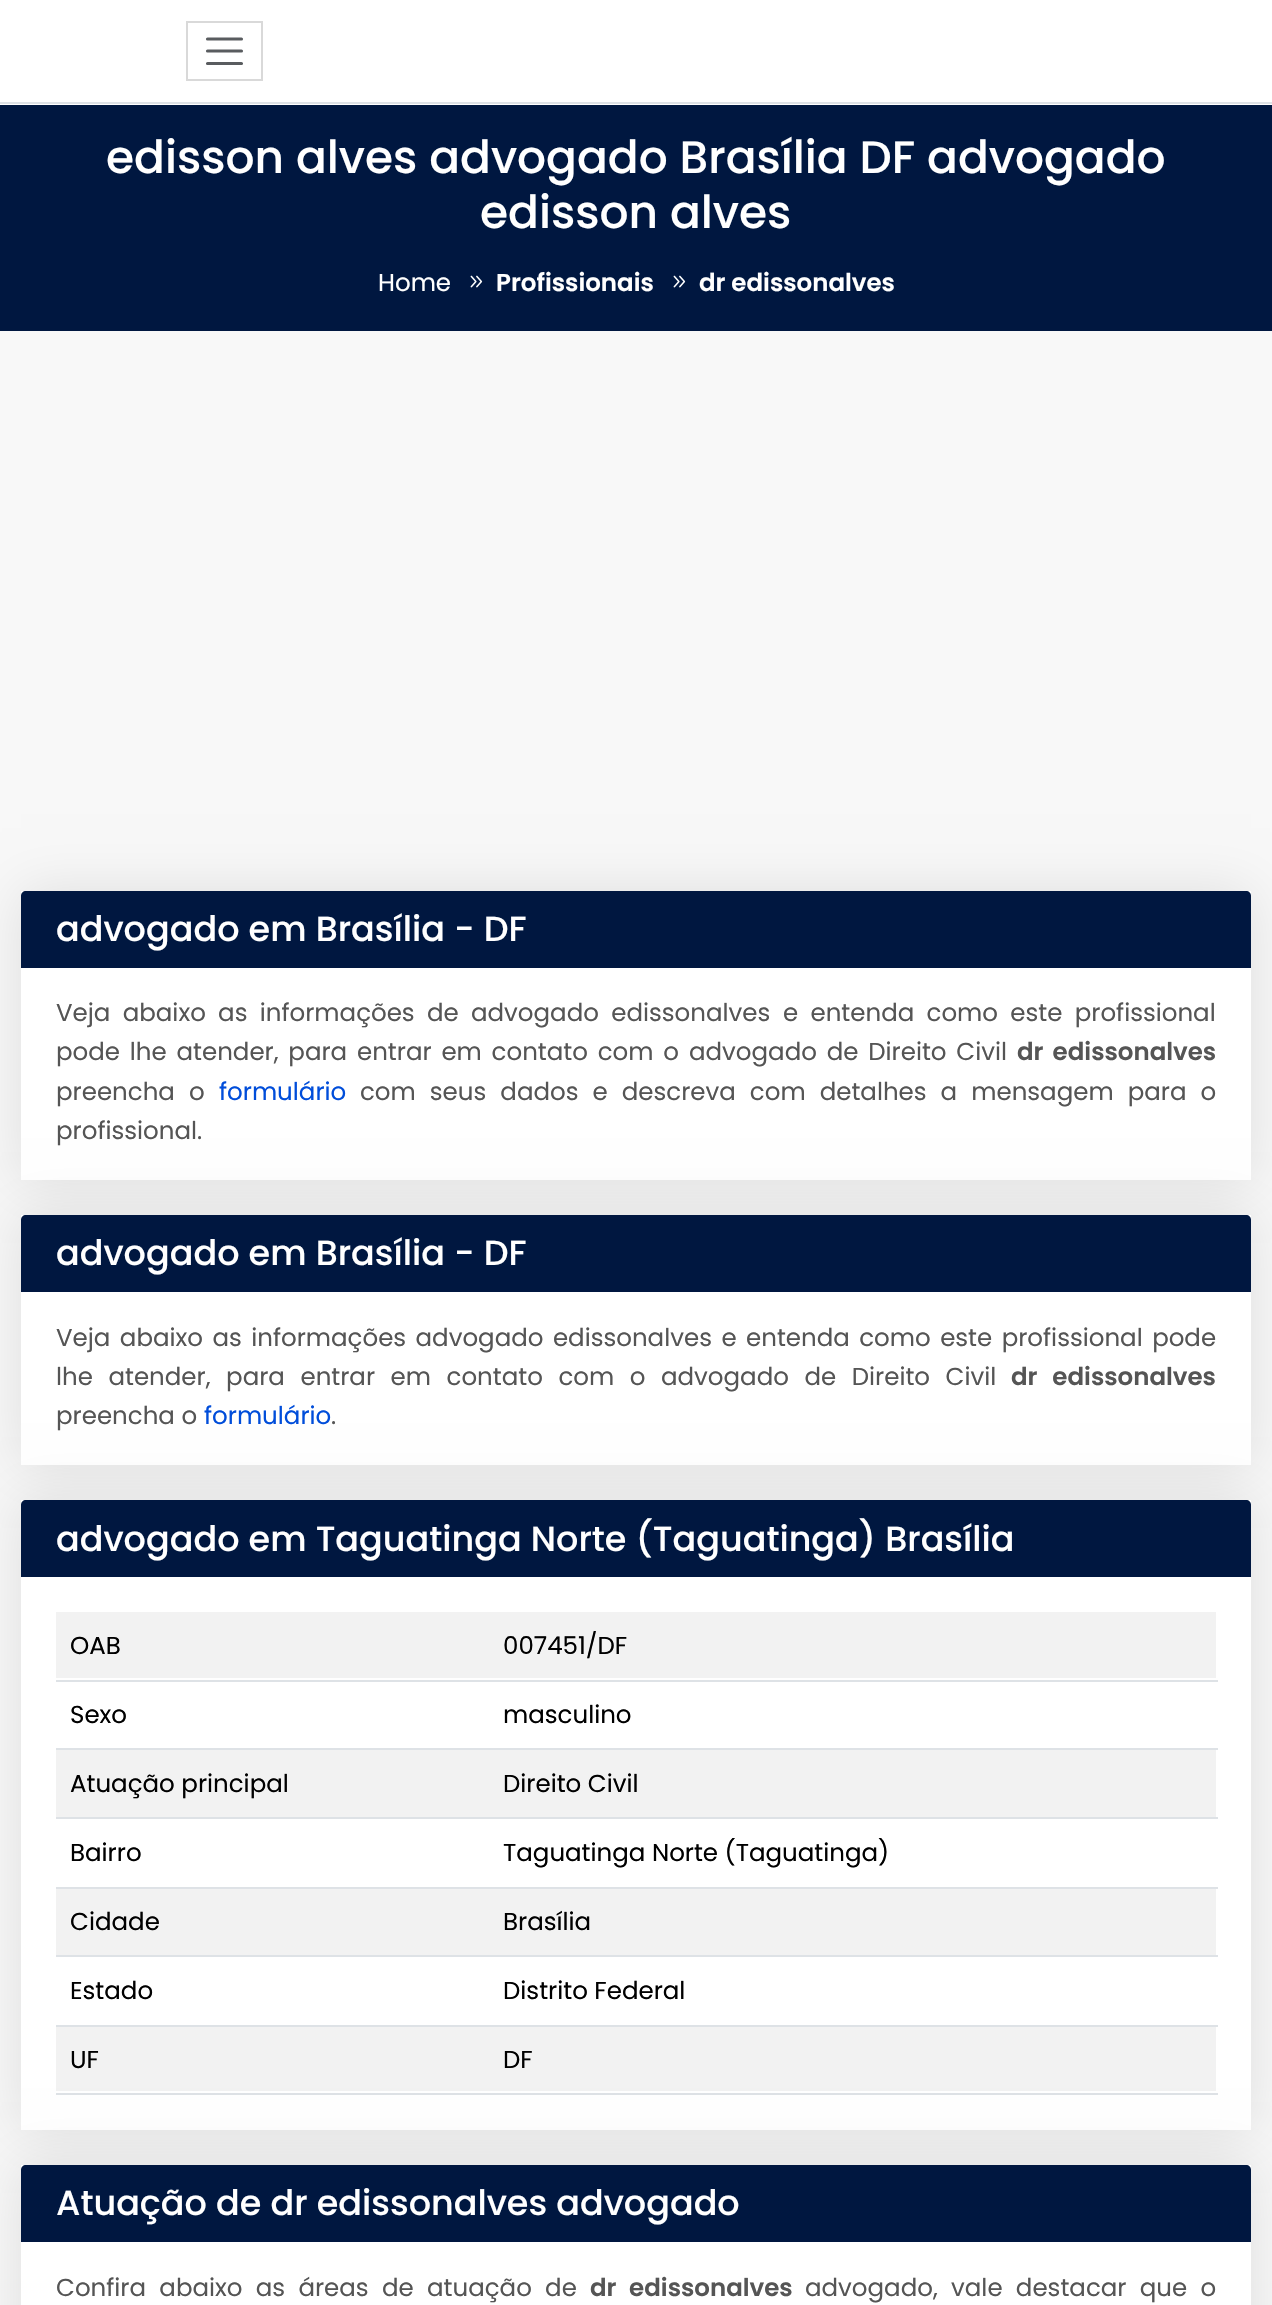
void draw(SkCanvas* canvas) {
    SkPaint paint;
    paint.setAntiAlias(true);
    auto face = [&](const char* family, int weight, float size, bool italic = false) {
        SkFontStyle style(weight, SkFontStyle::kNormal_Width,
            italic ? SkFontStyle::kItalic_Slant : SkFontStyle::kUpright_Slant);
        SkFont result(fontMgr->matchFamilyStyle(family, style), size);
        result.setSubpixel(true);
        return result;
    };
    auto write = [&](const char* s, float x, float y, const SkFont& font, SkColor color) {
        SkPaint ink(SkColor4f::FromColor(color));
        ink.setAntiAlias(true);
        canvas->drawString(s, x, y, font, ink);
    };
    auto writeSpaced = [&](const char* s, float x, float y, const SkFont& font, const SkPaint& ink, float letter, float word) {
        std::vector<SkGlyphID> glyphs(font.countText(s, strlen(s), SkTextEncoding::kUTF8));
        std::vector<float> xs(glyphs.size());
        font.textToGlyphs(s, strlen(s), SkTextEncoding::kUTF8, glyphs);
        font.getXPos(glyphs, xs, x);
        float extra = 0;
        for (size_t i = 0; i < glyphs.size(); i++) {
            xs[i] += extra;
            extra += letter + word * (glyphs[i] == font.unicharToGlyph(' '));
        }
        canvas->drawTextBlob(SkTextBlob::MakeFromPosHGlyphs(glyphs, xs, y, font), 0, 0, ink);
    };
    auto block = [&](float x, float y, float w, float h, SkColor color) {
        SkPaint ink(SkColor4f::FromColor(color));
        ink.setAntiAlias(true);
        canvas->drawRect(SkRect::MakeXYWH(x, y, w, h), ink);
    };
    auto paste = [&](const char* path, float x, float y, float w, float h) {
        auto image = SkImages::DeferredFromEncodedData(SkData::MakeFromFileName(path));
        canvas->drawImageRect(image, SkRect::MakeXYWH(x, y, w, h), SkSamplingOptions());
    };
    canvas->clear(SkColorSetRGB(248, 248, 248));
    block(0, 0, 1272, 105, SK_ColorWHITE);
    block(0, 102, 1272, 2, SkColorSetRGB(222, 226, 230));
    paint.setStyle(SkPaint::kStroke_Style);
    paint.setStrokeWidth(2);
    paint.setColor(SkColorSetRGB(217, 217, 217));
    canvas->drawRect(SkRect::MakeXYWH(187, 22, 75, 58), paint);
    paint.setStrokeWidth(3.1f);
    paint.setStrokeCap(SkPaint::kRound_Cap);
    paint.setColor(SkColorSetRGB(89, 92, 95));
    canvas->drawPath(SkPathBuilder().moveTo(207.5f, 39).lineTo(241.5f, 39).moveTo(207.5f, 51).lineTo(241.5f, 51).moveTo(207.5f, 63.5f).lineTo(241.5f, 63.5f).detach(), paint);
    block(0, 105, 1272, 226, SkColorSetRGB(0, 23, 64));
    auto kFont1 = face("Poppins", 500, 45.5f);
    write("edisson alves advogado Brasília DF advogado", 106, 173, kFont1, SK_ColorWHITE);
    write("edisson alves", 480, 228, kFont1, SK_ColorWHITE);
    auto kFont2 = face("Poppins", 400, 24.5f);
    write("Home", 378, 291, kFont2, SK_ColorWHITE);
    paste("pic1.png", 470, 275, 13, 13);
    auto kFont3 = face("Poppins", 600, 24.5f);
    write("Profissionais", 496, 291, kFont3, SK_ColorWHITE);
    paste("pic1.png", 673, 275, 13, 13);
    write("dr edissonalves", 699, 291, kFont3, SK_ColorWHITE);
    paint.setStyle(SkPaint::kFill_Style);
    paint.setColor(SkColorSetARGB(26, 0, 0, 0));
    paint.setMaskFilter(SkMaskFilter::MakeBlur(kNormal_SkBlurStyle, 26));
    canvas->drawRect(SkRect::MakeXYWH(21, 891, 1230, 289), paint);
    paint.setMaskFilter(nullptr);
    block(21, 891, 1230, 289, SK_ColorWHITE);
    paint.setColor(SkColorSetRGB(0, 23, 64));
    canvas->drawPath(SkPathBuilder().moveTo(26, 891).lineTo(1246, 891).cubicTo(1249, 891, 1251, 893, 1251, 896).lineTo(1251, 968).lineTo(21, 968).lineTo(21, 896).cubicTo(21, 893, 23, 891, 26, 891).close().detach(), paint);
    auto kFont4 = face("Poppins", 500, 35);
    write("advogado em Brasília - DF", 56, 941, kFont4, SK_ColorWHITE);
    paint.setColor(SkColorSetRGB(85, 85, 85));
    writeSpaced("Veja abaixo as informações de advogado edissonalves", 56, 1021, kFont2, paint, 0, 5.75f);
    writeSpaced("e entenda como este profissional", 783, 1021, kFont2, paint, 0, 5.75f);
    writeSpaced("pode lhe atender, para entrar em contato com o", 56, 1060, kFont2, paint, 0, 3.25f);
    writeSpaced("advogado de Direito Civil", 689, 1060, kFont2, paint, 0, 3.25f);
    writeSpaced("dr edissonalves", 1017, 1060, kFont3, paint, 0, 3.25f);
    writeSpaced("preencha o", 56, 1100, kFont2, paint, 0, 7.5f);
    write("formulário", 219, 1100, kFont2, SkColorSetRGB(0, 77, 218));
    writeSpaced("com seus dados e descreva com detalhes a mensagem para o", 360, 1100, kFont2, paint, 0, 7.5f);
    paint.setColor(SkColorSetARGB(26, 0, 0, 0));
    paint.setMaskFilter(SkMaskFilter::MakeBlur(kNormal_SkBlurStyle, 26));
    canvas->drawRect(SkRect::MakeXYWH(21, 1215, 1230, 250), paint);
    paint.setMaskFilter(nullptr);
    write("profissional.", 56, 1139, kFont2, SkColorSetRGB(85, 85, 85));
    block(21, 1215, 1230, 250, SK_ColorWHITE);
    paint.setColor(SkColorSetRGB(0, 23, 64));
    canvas->drawPath(SkPathBuilder().moveTo(26, 1215).lineTo(1246, 1215).cubicTo(1249, 1215, 1251, 1217, 1251, 1220).lineTo(1251, 1292).lineTo(21, 1292).lineTo(21, 1220).cubicTo(21, 1217, 23, 1215, 26, 1215).close().detach(), paint);
    write("advogado em Brasília - DF", 56, 1265, kFont4, SK_ColorWHITE);
    paint.setColor(SkColorSetRGB(85, 85, 85));
    writeSpaced("Veja abaixo as informações advogado edissonalves e entenda como este profissional pode", 56, 1346, kFont2, paint, 0, 2.9f);
    writeSpaced("lhe atender, para entrar em contato com o advogado de Direito Civil", 56, 1385, kFont2, paint, 0, 9);
    writeSpaced("dr edissonalves", 1011, 1385, kFont3, paint, 0, 9);
    paint.setColor(SkColorSetARGB(26, 0, 0, 0));
    paint.setMaskFilter(SkMaskFilter::MakeBlur(kNormal_SkBlurStyle, 26));
    canvas->drawRect(SkRect::MakeXYWH(21, 1500, 1230, 630), paint);
    paint.setMaskFilter(nullptr);
    write("preencha o", 56, 1424, kFont2, SkColorSetRGB(85, 85, 85));
    write("formulário", 204, 1424, kFont2, SkColorSetRGB(0, 77, 218));
    write(".", 331, 1424, kFont2, SkColorSetRGB(85, 85, 85));
    block(21, 1500, 1230, 630, SK_ColorWHITE);
    paint.setColor(SkColorSetRGB(0, 23, 64));
    canvas->drawPath(SkPathBuilder().moveTo(26, 1500).lineTo(1246, 1500).cubicTo(1249, 1500, 1251, 1502, 1251, 1505).lineTo(1251, 1577).lineTo(21, 1577).lineTo(21, 1505).cubicTo(21, 1502, 23, 1500, 26, 1500).close().detach(), paint);
    write("advogado em Taguatinga Norte (Taguatinga) Brasília", 56, 1551, kFont4, SK_ColorWHITE);
    block(56, 1612, 1160, 66, SkColorSetRGB(242, 242, 242));
    write("OAB", 70, 1654, kFont2, SK_ColorBLACK);
    block(56, 1680, 1162, 2, SkColorSetRGB(222, 226, 230));
    write("007451/DF", 503, 1654, kFont2, SK_ColorBLACK);
    write("Sexo", 70, 1723, kFont2, SK_ColorBLACK);
    block(56, 1748, 1162, 2, SkColorSetRGB(222, 226, 230));
    write("masculino", 503, 1723, kFont2, SK_ColorBLACK);
    block(56, 1750, 1160, 67, SkColorSetRGB(242, 242, 242));
    write("Atuação principal", 70, 1792, kFont2, SK_ColorBLACK);
    block(56, 1817, 1162, 2, SkColorSetRGB(222, 226, 230));
    write("Direito Civil", 503, 1792, kFont2, SK_ColorBLACK);
    write("Bairro", 70, 1861, kFont2, SK_ColorBLACK);
    block(56, 1887, 1162, 2, SkColorSetRGB(222, 226, 230));
    write("Taguatinga Norte (Taguatinga)", 503, 1861, kFont2, SK_ColorBLACK);
    block(56, 1889, 1160, 66, SkColorSetRGB(242, 242, 242));
    write("Cidade", 70, 1930, kFont2, SK_ColorBLACK);
    block(56, 1955, 1162, 2, SkColorSetRGB(222, 226, 230));
    write("Brasília", 503, 1930, kFont2, SK_ColorBLACK);
    write("Estado", 70, 1999, kFont2, SK_ColorBLACK);
    block(56, 2025, 1162, 2, SkColorSetRGB(222, 226, 230));
    write("Distrito Federal", 503, 1999, kFont2, SK_ColorBLACK);
    block(56, 2027, 1160, 64, SkColorSetRGB(242, 242, 242));
    write("UF", 70, 2068, kFont2, SK_ColorBLACK);
    block(56, 2093, 1162, 2, SkColorSetRGB(222, 226, 230));
    write("DF", 503, 2068, kFont2, SK_ColorBLACK);
    paint.setColor(SkColorSetARGB(26, 0, 0, 0));
    paint.setMaskFilter(SkMaskFilter::MakeBlur(kNormal_SkBlurStyle, 26));
    canvas->drawRect(SkRect::MakeXYWH(21, 2165, 1230, 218), paint);
    paint.setMaskFilter(nullptr);
    block(21, 2165, 1230, 140, SK_ColorWHITE);
    paint.setColor(SkColorSetRGB(0, 23, 64));
    canvas->drawPath(SkPathBuilder().moveTo(26, 2165).lineTo(1246, 2165).cubicTo(1249, 2165, 1251, 2167, 1251, 2170).lineTo(1251, 2242).lineTo(21, 2242).lineTo(21, 2170).cubicTo(21, 2167, 23, 2165, 26, 2165).close().detach(), paint);
    write("Atuação de dr edissonalves advogado", 56, 2215, kFont4, SK_ColorWHITE);
    paint.setColor(SkColorSetRGB(85, 85, 85));
    writeSpaced("Confira abaixo as áreas de atuação de", 56, 2296, kFont2, paint, 0, 6.75f);
    writeSpaced("dr edissonalves", 590, 2296, kFont3, paint, 0, 6.75f);
    writeSpaced("advogado, vale destacar que o", 805, 2296, kFont2, paint, 0, 6.75f);
}
